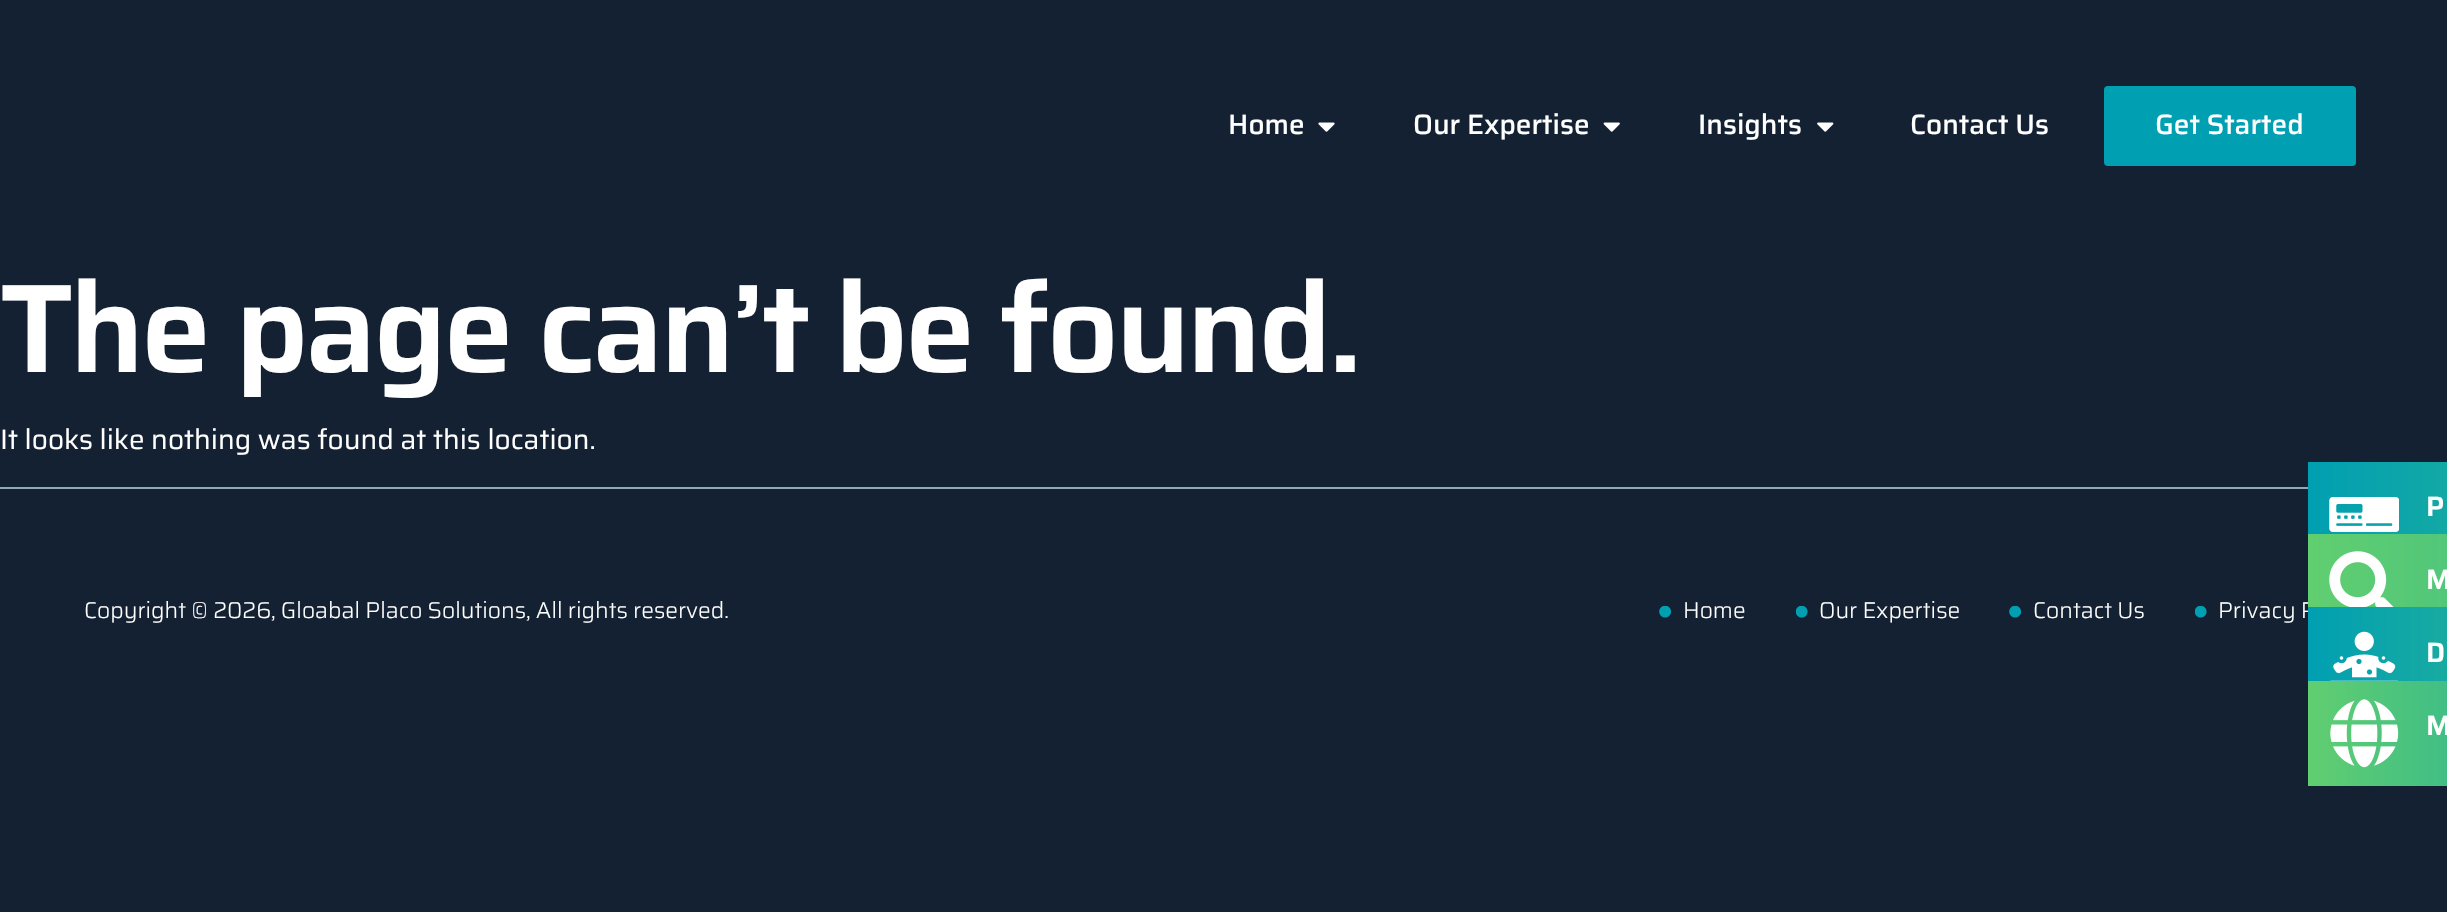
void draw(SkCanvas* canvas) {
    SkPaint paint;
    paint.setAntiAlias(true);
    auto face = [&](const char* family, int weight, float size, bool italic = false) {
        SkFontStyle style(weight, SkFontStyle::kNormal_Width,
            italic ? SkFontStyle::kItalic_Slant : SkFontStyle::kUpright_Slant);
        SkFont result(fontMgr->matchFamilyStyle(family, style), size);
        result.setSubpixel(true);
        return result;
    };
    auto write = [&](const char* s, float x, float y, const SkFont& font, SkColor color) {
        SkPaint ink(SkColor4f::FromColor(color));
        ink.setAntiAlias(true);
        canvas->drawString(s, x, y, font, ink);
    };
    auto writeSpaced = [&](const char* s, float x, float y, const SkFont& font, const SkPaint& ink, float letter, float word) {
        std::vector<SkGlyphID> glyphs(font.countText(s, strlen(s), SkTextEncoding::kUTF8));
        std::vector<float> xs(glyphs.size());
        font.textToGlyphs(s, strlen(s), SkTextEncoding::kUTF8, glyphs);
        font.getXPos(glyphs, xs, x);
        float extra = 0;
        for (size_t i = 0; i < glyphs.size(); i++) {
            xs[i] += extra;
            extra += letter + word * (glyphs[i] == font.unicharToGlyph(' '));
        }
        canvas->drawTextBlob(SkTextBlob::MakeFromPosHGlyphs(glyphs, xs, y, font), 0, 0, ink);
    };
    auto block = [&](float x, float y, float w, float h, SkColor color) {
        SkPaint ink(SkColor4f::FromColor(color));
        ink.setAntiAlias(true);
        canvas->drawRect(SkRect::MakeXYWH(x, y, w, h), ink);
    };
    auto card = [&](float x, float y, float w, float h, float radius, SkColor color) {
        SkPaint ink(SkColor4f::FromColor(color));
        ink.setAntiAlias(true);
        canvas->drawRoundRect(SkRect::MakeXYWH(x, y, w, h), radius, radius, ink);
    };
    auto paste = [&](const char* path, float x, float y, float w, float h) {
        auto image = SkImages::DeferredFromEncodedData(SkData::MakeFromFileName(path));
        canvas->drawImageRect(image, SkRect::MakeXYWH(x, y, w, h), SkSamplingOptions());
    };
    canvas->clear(SkColorSetRGB(20, 33, 50));
    auto kFont1 = face("Saira", 500, 28);
    write("Home", 1228, 134, kFont1, SK_ColorWHITE);
    paste("pic1.png", 1318, 122, 17, 10);
    write("Our Expertise", 1413, 134, kFont1, SK_ColorWHITE);
    paste("pic2.png", 1603, 122, 17, 10);
    write("Insights", 1698, 134, kFont1, SK_ColorWHITE);
    paste("pic3.png", 1817, 122, 17, 10);
    write("Contact Us", 1910, 134, kFont1, SK_ColorWHITE);
    card(2104, 86, 252, 80, 4, SkColorSetRGB(0, 159, 178));
    write("Get Started", 2155, 134, kFont1, SK_ColorWHITE);
    auto kFont2 = face("Saira", 600, 126);
    paint.setColor(SK_ColorWHITE);
    writeSpaced("The page can’t be found.", 0, 372, kFont2, paint, -3.5f, 0);
    auto kFont3 = face("Saira", 400, 28);
    write("It looks like nothing was found at this location.", 0, 449, kFont3, SK_ColorWHITE);
    block(0, 487, 2308, 2, SkColorSetRGB(146, 168, 183));
    auto kFont4 = face("Saira", 300, 22.75f);
    write("Copyright © 2026, Gloabal Placo Solutions, All rights reserved.", 84, 618, kFont4, SK_ColorWHITE);
    paste("pic4.png", 1659, 606, 12, 12);
    write("Home", 1683, 618, kFont4, SK_ColorWHITE);
    paste("pic5.png", 1796, 606, 12, 12);
    write("Our Expertise", 1819, 618, kFont4, SK_ColorWHITE);
    paste("pic4.png", 2009, 606, 12, 12);
    write("Contact Us", 2033, 618, kFont4, SK_ColorWHITE);
    paste("pic5.png", 2195, 606, 12, 12);
    write("Privacy P", 2218, 618, kFont4, SK_ColorWHITE);
    {
        const SkColor colors[] = {SkColorSetRGB(0, 159, 178), SkColorSetRGB(97, 206, 112)};
        const float stops[] = {0, 1};
        const SkPoint ends[] = {{2308, 515}, {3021, 515}};
        paint.setShader(SkGradientShader::MakeLinear(ends, colors, stops, 2, SkTileMode::kClamp));
        paint.setAlpha(255);
    }
    canvas->drawRect(SkRect::MakeXYWH(2308, 462, 139, 72), paint);
    paste("pic6.png", 2329, 497, 70, 35);
    auto kFont5 = face("Saira", 600, 28);
    paint.setShader(nullptr);
    paint.setColor(SK_ColorWHITE);
    writeSpaced("P", 2426, 516, kFont5, paint, 4, 0);
    {
        const SkColor colors[] = {SkColorSetRGB(0, 159, 178), SkColorSetRGB(97, 206, 112)};
        const float stops[] = {0, 1};
        const SkPoint ends[] = {{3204, 586}, {2308, 586}};
        paint.setShader(SkGradientShader::MakeLinear(ends, colors, stops, 2, SkTileMode::kClamp));
        paint.setAlpha(255);
    }
    canvas->drawRect(SkRect::MakeXYWH(2308, 534, 139, 73), paint);
    paste("pic7.png", 2329, 551, 65, 56);
    paint.setShader(nullptr);
    paint.setColor(SK_ColorWHITE);
    writeSpaced("M", 2426, 589, kFont5, paint, 4, 0);
    {
        const SkColor colors[] = {SkColorSetRGB(0, 159, 178), SkColorSetRGB(97, 206, 112)};
        const float stops[] = {0, 1};
        const SkPoint ends[] = {{2308, 660}, {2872, 660}};
        paint.setShader(SkGradientShader::MakeLinear(ends, colors, stops, 2, SkTileMode::kClamp));
        paint.setAlpha(255);
    }
    canvas->drawRect(SkRect::MakeXYWH(2308, 607, 139, 74), paint);
    paste("pic8.png", 2330, 631, 69, 50);
    paint.setShader(nullptr);
    paint.setColor(SK_ColorWHITE);
    writeSpaced("D", 2426, 662, kFont5, paint, 4, 0);
    {
        const SkColor colors[] = {SkColorSetRGB(0, 159, 178), SkColorSetRGB(97, 206, 112)};
        const float stops[] = {0, 1};
        const SkPoint ends[] = {{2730, 733}, {2308, 733}};
        paint.setShader(SkGradientShader::MakeLinear(ends, colors, stops, 2, SkTileMode::kClamp));
        paint.setAlpha(255);
    }
    canvas->drawRect(SkRect::MakeXYWH(2308, 681, 139, 105), paint);
    paste("pic9.png", 2330, 699, 69, 69);
    paint.setShader(nullptr);
    paint.setColor(SK_ColorWHITE);
    writeSpaced("M", 2426, 735, kFont5, paint, 4, 0);
}
